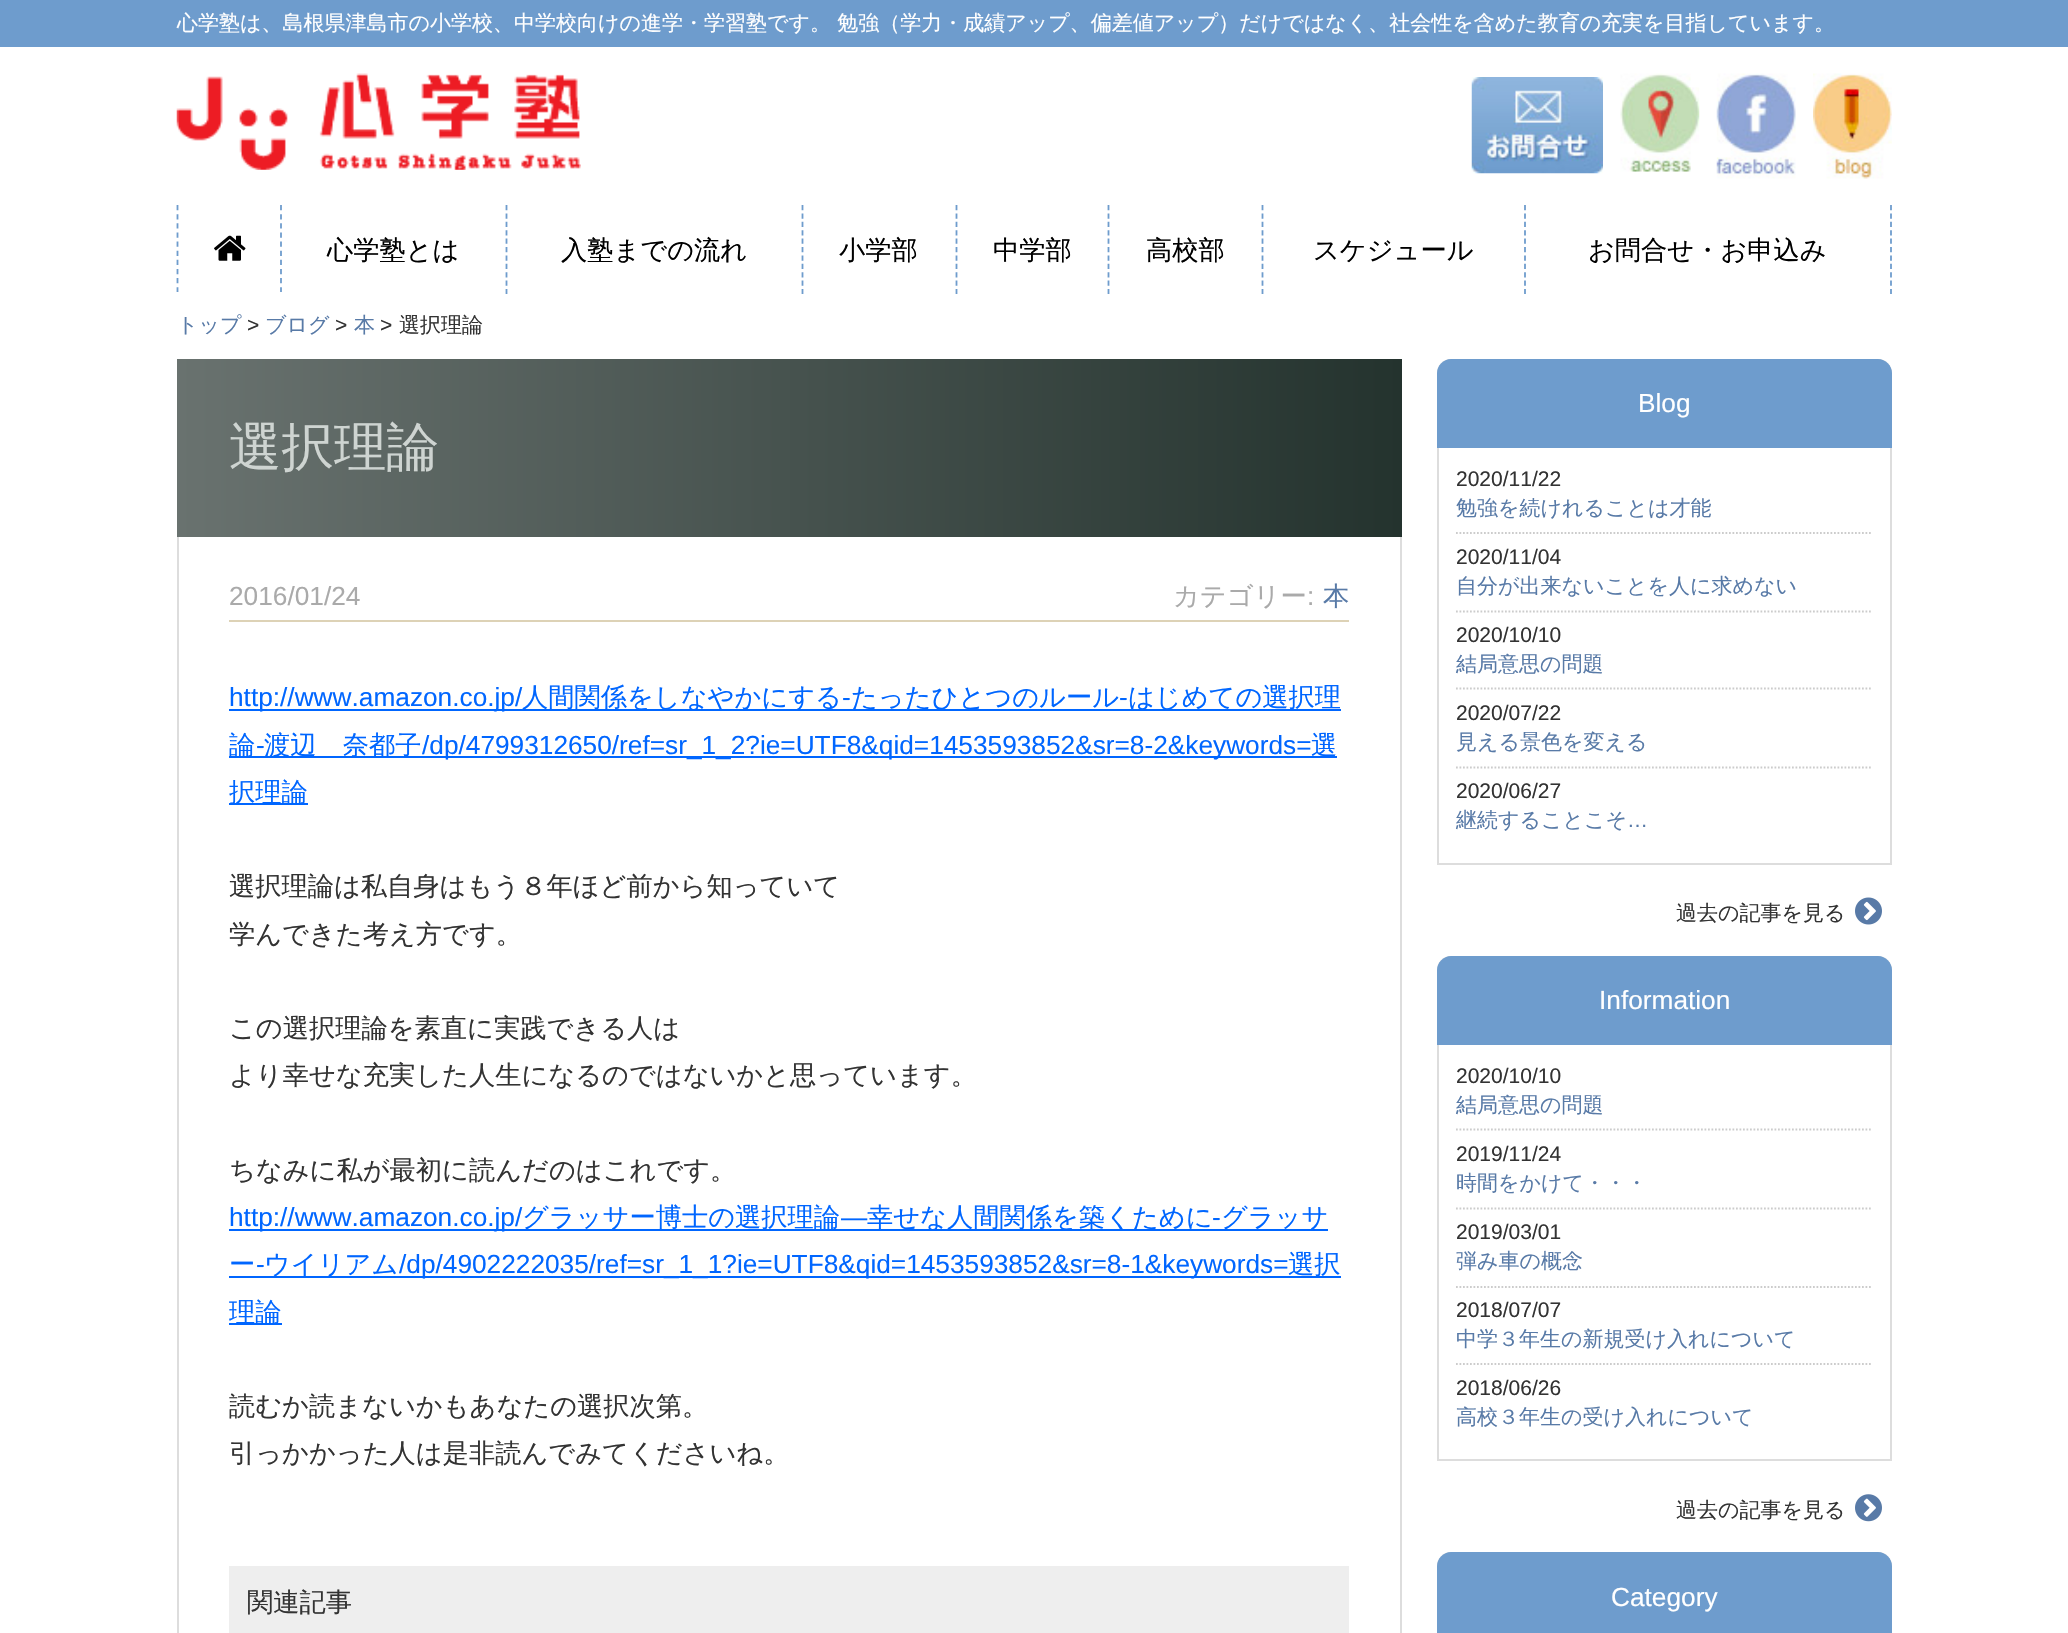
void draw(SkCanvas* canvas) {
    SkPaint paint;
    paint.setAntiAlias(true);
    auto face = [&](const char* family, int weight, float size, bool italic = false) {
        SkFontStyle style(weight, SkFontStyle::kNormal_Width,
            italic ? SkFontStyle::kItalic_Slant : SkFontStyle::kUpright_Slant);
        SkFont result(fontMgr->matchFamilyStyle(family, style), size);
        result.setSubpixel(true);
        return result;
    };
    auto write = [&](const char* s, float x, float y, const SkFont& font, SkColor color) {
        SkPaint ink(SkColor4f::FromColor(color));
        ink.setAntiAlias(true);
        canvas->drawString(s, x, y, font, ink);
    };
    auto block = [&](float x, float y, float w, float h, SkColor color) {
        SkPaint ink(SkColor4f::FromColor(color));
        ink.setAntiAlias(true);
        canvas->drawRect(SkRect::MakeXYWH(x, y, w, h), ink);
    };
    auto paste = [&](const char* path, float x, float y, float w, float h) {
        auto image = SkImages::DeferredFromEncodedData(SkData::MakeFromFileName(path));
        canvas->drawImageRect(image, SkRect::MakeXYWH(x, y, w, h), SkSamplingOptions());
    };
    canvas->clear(SK_ColorWHITE);
    block(0, 0, 2068, 47, SkColorSetRGB(110, 156, 205));
    auto kFont1 = face("WenQuanYi Zen Hei", 500, 21);
    write("心学塾は、島根県津島市の小学校、中学校向けの進学・学習塾です。 勉強（学力・成績アップ、偏差値アップ）だけではなく、社会性を含めた教育の充実を目指しています。", 177, 30, kFont1, SK_ColorWHITE);
    paste("pic1.png", 176, 73, 405, 97);
    paste("pic2.png", 1471, 77, 132, 97);
    paste("pic3.png", 1620, 73, 80, 99);
    paste("pic4.png", 1716, 73, 80, 106);
    paste("pic5.png", 1813, 73, 79, 106);
    paint.setStyle(SkPaint::kStroke_Style);
    paint.setStrokeWidth(1.8f);
    paint.setColor(SkColorSetRGB(110, 156, 205));
    paint.setPathEffect(SkDashPathEffect::Make({{5.25f, 3.89f}}, 0));
    canvas->drawPath(SkPathBuilder().moveTo(281, 205).lineTo(281, 292).detach(), paint);
    paint.setPathEffect(nullptr);
    paint.setPathEffect(SkDashPathEffect::Make({{5.25f, 3.89f}}, 0));
    canvas->drawPath(SkPathBuilder().moveTo(177.5f, 205).lineTo(177.5f, 292).detach(), paint);
    paint.setPathEffect(nullptr);
    paste("pic6.png", 214, 235, 32, 26);
    paint.setPathEffect(SkDashPathEffect::Make({{5.25f, 3.15f}}, 0));
    canvas->drawPath(SkPathBuilder().moveTo(506.5f, 205).lineTo(506.5f, 294).detach(), paint);
    paint.setPathEffect(nullptr);
    auto kFont2 = face("WenQuanYi Zen Hei", 500, 26.25f);
    write("心学塾とは", 327, 259, kFont2, SK_ColorBLACK);
    paint.setPathEffect(SkDashPathEffect::Make({{5.25f, 3.15f}}, 0));
    canvas->drawPath(SkPathBuilder().moveTo(802.5f, 205).lineTo(802.5f, 294).detach(), paint);
    paint.setPathEffect(nullptr);
    write("入塾までの流れ", 561, 259, kFont2, SK_ColorBLACK);
    paint.setPathEffect(SkDashPathEffect::Make({{5.25f, 3.15f}}, 0));
    canvas->drawPath(SkPathBuilder().moveTo(956.5f, 205).lineTo(956.5f, 294).detach(), paint);
    paint.setPathEffect(nullptr);
    write("小学部", 839, 259, kFont2, SK_ColorBLACK);
    paint.setPathEffect(SkDashPathEffect::Make({{5.25f, 3.15f}}, 0));
    canvas->drawPath(SkPathBuilder().moveTo(1108.5f, 205).lineTo(1108.5f, 294).detach(), paint);
    paint.setPathEffect(nullptr);
    write("中学部", 993, 259, kFont2, SK_ColorBLACK);
    paint.setPathEffect(SkDashPathEffect::Make({{5.25f, 3.15f}}, 0));
    canvas->drawPath(SkPathBuilder().moveTo(1262.5f, 205).lineTo(1262.5f, 294).detach(), paint);
    paint.setPathEffect(nullptr);
    write("高校部", 1146, 259, kFont2, SK_ColorBLACK);
    paint.setPathEffect(SkDashPathEffect::Make({{5.25f, 3.15f}}, 0));
    canvas->drawPath(SkPathBuilder().moveTo(1525, 205).lineTo(1525, 294).detach(), paint);
    paint.setPathEffect(nullptr);
    write("スケジュール", 1313, 259, kFont2, SK_ColorBLACK);
    paint.setPathEffect(SkDashPathEffect::Make({{5.25f, 3.15f}}, 0));
    canvas->drawPath(SkPathBuilder().moveTo(1891, 205).lineTo(1891, 294).detach(), paint);
    paint.setPathEffect(nullptr);
    write("お問合せ・お申込み", 1588, 259, kFont2, SK_ColorBLACK);
    write("トップ", 177, 332, kFont1, SkColorSetRGB(88, 122, 167));
    auto kFont3 = face("Liberation Sans", 400, 21);
    write(">", 247, 332, kFont3, SkColorSetRGB(51, 51, 51));
    write("ブログ", 265, 332, kFont1, SkColorSetRGB(88, 122, 167));
    write(">", 335, 332, kFont3, SkColorSetRGB(51, 51, 51));
    write("本", 354, 332, kFont1, SkColorSetRGB(88, 122, 167));
    write(">", 380, 332, kFont3, SkColorSetRGB(51, 51, 51));
    write("選択理論", 399, 332, kFont1, SkColorSetRGB(51, 51, 51));
    paint.setStrokeWidth(2);
    paint.setColor(SkColorSetRGB(221, 221, 221));
    canvas->drawRect(SkRect::MakeXYWH(178, 360, 1223, 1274), paint);
    paint.setStyle(SkPaint::kFill_Style);
    {
        const SkColor colors[] = {SkColorSetRGB(105, 114, 111), SkColorSetRGB(36, 51, 46)};
        const float stops[] = {0, 1};
        const SkPoint ends[] = {{177, 448}, {1402, 448}};
        paint.setShader(SkGradientShader::MakeLinear(ends, colors, stops, 2, SkTileMode::kClamp));
        paint.setAlpha(255);
    }
    canvas->drawRect(SkRect::MakeXYWH(177, 359, 1225, 178), paint);
    auto kFont4 = face("WenQuanYi Zen Hei", 500, 52.5f);
    write("選択理論", 229, 465, kFont4, SkColorSetRGB(206, 212, 209));
    block(229, 620, 1120, 2, SkColorSetRGB(221, 210, 182));
    auto kFont5 = face("Liberation Sans", 400, 26.25f);
    write("2016/01/24", 229, 605, kFont5, SkColorSetRGB(170, 170, 170));
    write("カテゴリー", 1173, 605, kFont2, SkColorSetRGB(170, 170, 170));
    write(":", 1307, 605, kFont5, SkColorSetRGB(170, 170, 170));
    write("本", 1323, 605, kFont2, SkColorSetRGB(88, 122, 167));
    block(229, 709, 1112, 2, SkColorSetRGB(0, 102, 255));
    write("http://www.amazon.co.jp/", 229, 706, kFont5, SkColorSetRGB(0, 102, 255));
    write("人間関係をしなやかにする", 522, 706, kFont2, SkColorSetRGB(0, 102, 255));
    write("-", 842, 706, kFont5, SkColorSetRGB(0, 102, 255));
    write("たったひとつのルール", 851, 706, kFont2, SkColorSetRGB(0, 102, 255));
    write("-", 1119, 706, kFont5, SkColorSetRGB(0, 102, 255));
    write("はじめての選択理", 1128, 706, kFont2, SkColorSetRGB(0, 102, 255));
    block(229, 756, 1108, 2, SkColorSetRGB(0, 102, 255));
    write("論", 229, 754, kFont2, SkColorSetRGB(0, 102, 255));
    write("-", 256, 754, kFont5, SkColorSetRGB(0, 102, 255));
    write("渡辺　奈都子", 264, 754, kFont2, SkColorSetRGB(0, 102, 255));
    write("/dp/4799312650/ref=sr_1_2?ie=UTF8&qid=1453593852&sr=8-2&keywords=", 422, 754, kFont5, SkColorSetRGB(0, 102, 255));
    write("選", 1311, 754, kFont2, SkColorSetRGB(0, 102, 255));
    block(229, 803, 79, 2, SkColorSetRGB(0, 102, 255));
    write("択理論", 229, 801, kFont2, SkColorSetRGB(0, 102, 255));
    write("選択理論は私自身はもう８年ほど前から知っていて", 229, 895, kFont2, SkColorSetRGB(51, 51, 51));
    write("学んできた考え方です。", 229, 943, kFont2, SkColorSetRGB(51, 51, 51));
    write("この選択理論を素直に実践できる人は", 229, 1037, kFont2, SkColorSetRGB(51, 51, 51));
    write("より幸せな充実した人生になるのではないかと思っています。", 229, 1084, kFont2, SkColorSetRGB(51, 51, 51));
    write("ちなみに私が最初に読んだのはこれです。", 229, 1179, kFont2, SkColorSetRGB(51, 51, 51));
    block(229, 1229, 1099, 2, SkColorSetRGB(0, 102, 255));
    write("http://www.amazon.co.jp/", 229, 1226, kFont5, SkColorSetRGB(0, 102, 255));
    write("グラッサー博士の選択理論", 522, 1226, kFont2, SkColorSetRGB(0, 102, 255));
    write("―", 841, 1226, kFont5, SkColorSetRGB(0, 102, 255));
    write("幸せな人間関係を築くために", 867, 1226, kFont2, SkColorSetRGB(0, 102, 255));
    write("-", 1212, 1226, kFont5, SkColorSetRGB(0, 102, 255));
    write("グラッサ", 1221, 1226, kFont2, SkColorSetRGB(0, 102, 255));
    write("ー", 229, 1273, kFont2, SkColorSetRGB(0, 102, 255));
    block(229, 1276, 1112, 2, SkColorSetRGB(0, 102, 255));
    write("ウイリアム", 264, 1273, kFont2, SkColorSetRGB(0, 102, 255));
    write("/dp/4902222035/ref=sr_1_1?ie=UTF8&qid=1453593852&sr=8-1&keywords=", 399, 1273, kFont5, SkColorSetRGB(0, 102, 255));
    write("選択", 1288, 1273, kFont2, SkColorSetRGB(0, 102, 255));
    write("-", 256, 1273, kFont5, SkColorSetRGB(0, 102, 255));
    block(229, 1323, 53, 2, SkColorSetRGB(0, 102, 255));
    write("理論", 229, 1321, kFont2, SkColorSetRGB(0, 102, 255));
    write("読むか読まないかもあなたの選択次第。", 229, 1415, kFont2, SkColorSetRGB(51, 51, 51));
    write("引っかかった人は是非読んでみてくださいね。", 229, 1462, kFont2, SkColorSetRGB(51, 51, 51));
    block(229, 1566, 1120, 67, SkColorSetRGB(238, 238, 238));
    write("関連記事", 247, 1611, kFont2, SkColorSetRGB(51, 51, 51));
    paint.setStyle(SkPaint::kStroke_Style);
    paint.setShader(nullptr);
    paint.setColor(SkColorSetRGB(221, 221, 221));
    canvas->drawPath(SkPathBuilder().moveTo(1451, 360).lineTo(1878, 360).cubicTo(1885, 360, 1891, 366, 1891, 373).lineTo(1891, 864).lineTo(1438, 864).lineTo(1438, 373).cubicTo(1438, 366, 1444, 360, 1451, 360).close().detach(), paint);
    paint.setStyle(SkPaint::kFill_Style);
    paint.setColor(SkColorSetRGB(110, 156, 205));
    canvas->drawPath(SkPathBuilder().moveTo(1451, 359).lineTo(1878, 359).cubicTo(1885.5f, 359, 1892, 365.5f, 1892, 373).lineTo(1892, 448).lineTo(1437, 448).lineTo(1437, 373).cubicTo(1437, 365.5f, 1443.5f, 359, 1451, 359).close().detach(), paint);
    write("Blog", 1638, 412, kFont5, SK_ColorWHITE);
    paint.setStyle(SkPaint::kStroke_Style);
    paint.setStrokeWidth(1.8f);
    paint.setColor(SkColorSetRGB(204, 204, 204));
    paint.setPathEffect(SkDashPathEffect::Make({{1.75f, 1.75f}}, 0));
    canvas->drawPath(SkPathBuilder().moveTo(1456, 533).lineTo(1872.5f, 533).detach(), paint);
    paint.setPathEffect(nullptr);
    write("2020/11/22", 1456, 486, kFont3, SkColorSetRGB(51, 51, 51));
    write("勉強を続けれることは才能", 1456, 515, kFont1, SkColorSetRGB(88, 122, 167));
    paint.setPathEffect(SkDashPathEffect::Make({{1.75f, 1.75f}}, 0));
    canvas->drawPath(SkPathBuilder().moveTo(1456, 611.5f).lineTo(1872.5f, 611.5f).detach(), paint);
    paint.setPathEffect(nullptr);
    write("2020/11/04", 1456, 564, kFont3, SkColorSetRGB(51, 51, 51));
    write("自分が出来ないことを人に求めない", 1456, 593, kFont1, SkColorSetRGB(88, 122, 167));
    paint.setPathEffect(SkDashPathEffect::Make({{1.75f, 1.75f}}, 0));
    canvas->drawPath(SkPathBuilder().moveTo(1456, 688.5f).lineTo(1872.5f, 688.5f).detach(), paint);
    paint.setPathEffect(nullptr);
    write("2020/10/10", 1456, 642, kFont3, SkColorSetRGB(51, 51, 51));
    write("結局意思の問題", 1456, 671, kFont1, SkColorSetRGB(88, 122, 167));
    paint.setPathEffect(SkDashPathEffect::Make({{1.75f, 1.75f}}, 0));
    canvas->drawPath(SkPathBuilder().moveTo(1456, 767.5f).lineTo(1872.5f, 767.5f).detach(), paint);
    paint.setPathEffect(nullptr);
    write("2020/07/22", 1456, 720, kFont3, SkColorSetRGB(51, 51, 51));
    write("見える景色を変える", 1456, 749, kFont1, SkColorSetRGB(88, 122, 167));
    write("2020/06/27", 1456, 798, kFont3, SkColorSetRGB(51, 51, 51));
    write("継続することこそ", 1456, 827, kFont1, SkColorSetRGB(88, 122, 167));
    write("…", 1627, 827, kFont3, SkColorSetRGB(88, 122, 167));
    write("過去の記事を見る", 1676, 920, kFont1, SkColorSetRGB(51, 51, 51));
    paste("pic7.png", 1855, 897, 27, 28);
    paint.setStrokeWidth(2);
    paint.setColor(SkColorSetRGB(221, 221, 221));
    canvas->drawPath(SkPathBuilder().moveTo(1451, 957).lineTo(1878, 957).cubicTo(1885, 957, 1891, 963, 1891, 970).lineTo(1891, 1460).lineTo(1438, 1460).lineTo(1438, 970).cubicTo(1438, 963, 1444, 957, 1451, 957).close().detach(), paint);
    paint.setStyle(SkPaint::kFill_Style);
    paint.setColor(SkColorSetRGB(110, 156, 205));
    canvas->drawPath(SkPathBuilder().moveTo(1451, 956).lineTo(1878, 956).cubicTo(1885.5f, 956, 1892, 962.5f, 1892, 970).lineTo(1892, 1045).lineTo(1437, 1045).lineTo(1437, 970).cubicTo(1437, 962.5f, 1443.5f, 956, 1451, 956).close().detach(), paint);
    write("Information", 1599, 1009, kFont5, SK_ColorWHITE);
    paint.setStyle(SkPaint::kStroke_Style);
    paint.setStrokeWidth(1.8f);
    paint.setColor(SkColorSetRGB(204, 204, 204));
    paint.setPathEffect(SkDashPathEffect::Make({{1.75f, 1.75f}}, 0));
    canvas->drawPath(SkPathBuilder().moveTo(1456, 1129.5f).lineTo(1872.5f, 1129.5f).detach(), paint);
    paint.setPathEffect(nullptr);
    write("2020/10/10", 1456, 1083, kFont3, SkColorSetRGB(51, 51, 51));
    write("結局意思の問題", 1456, 1112, kFont1, SkColorSetRGB(88, 122, 167));
    paint.setPathEffect(SkDashPathEffect::Make({{1.75f, 1.75f}}, 0));
    canvas->drawPath(SkPathBuilder().moveTo(1456, 1208.5f).lineTo(1872.5f, 1208.5f).detach(), paint);
    paint.setPathEffect(nullptr);
    write("2019/11/24", 1456, 1161, kFont3, SkColorSetRGB(51, 51, 51));
    write("時間をかけて・・・", 1456, 1190, kFont1, SkColorSetRGB(88, 122, 167));
    paint.setPathEffect(SkDashPathEffect::Make({{1.75f, 1.75f}}, 0));
    canvas->drawPath(SkPathBuilder().moveTo(1456, 1287).lineTo(1872.5f, 1287).detach(), paint);
    paint.setPathEffect(nullptr);
    write("2019/03/01", 1456, 1239, kFont3, SkColorSetRGB(51, 51, 51));
    write("弾み車の概念", 1456, 1268, kFont1, SkColorSetRGB(88, 122, 167));
    paint.setPathEffect(SkDashPathEffect::Make({{1.75f, 1.75f}}, 0));
    canvas->drawPath(SkPathBuilder().moveTo(1456, 1364).lineTo(1872.5f, 1364).detach(), paint);
    paint.setPathEffect(nullptr);
    write("2018/07/07", 1456, 1317, kFont3, SkColorSetRGB(51, 51, 51));
    write("中学３年生の新規受け入れについて", 1456, 1346, kFont1, SkColorSetRGB(88, 122, 167));
    write("2018/06/26", 1456, 1395, kFont3, SkColorSetRGB(51, 51, 51));
    write("高校３年生の受け入れについて", 1456, 1424, kFont1, SkColorSetRGB(88, 122, 167));
    write("過去の記事を見る", 1676, 1517, kFont1, SkColorSetRGB(51, 51, 51));
    paste("pic8.png", 1855, 1494, 27, 28);
    paint.setStrokeWidth(2);
    paint.setColor(SkColorSetRGB(221, 221, 221));
    canvas->drawPath(SkPathBuilder().moveTo(1451, 1553).lineTo(1878, 1553).cubicTo(1885, 1553, 1891, 1559, 1891, 1566).lineTo(1891, 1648).lineTo(1438, 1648).lineTo(1438, 1566).cubicTo(1438, 1559, 1444, 1553, 1451, 1553).close().detach(), paint);
    paint.setStyle(SkPaint::kFill_Style);
    paint.setColor(SkColorSetRGB(110, 156, 205));
    canvas->drawPath(SkPathBuilder().moveTo(1451, 1552).lineTo(1878, 1552).cubicTo(1885.5f, 1552, 1892, 1558.5f, 1892, 1566).lineTo(1892, 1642).lineTo(1437, 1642).lineTo(1437, 1566).cubicTo(1437, 1558.5f, 1443.5f, 1552, 1451, 1552).close().detach(), paint);
    write("Category", 1611, 1606, kFont5, SK_ColorWHITE);
}
